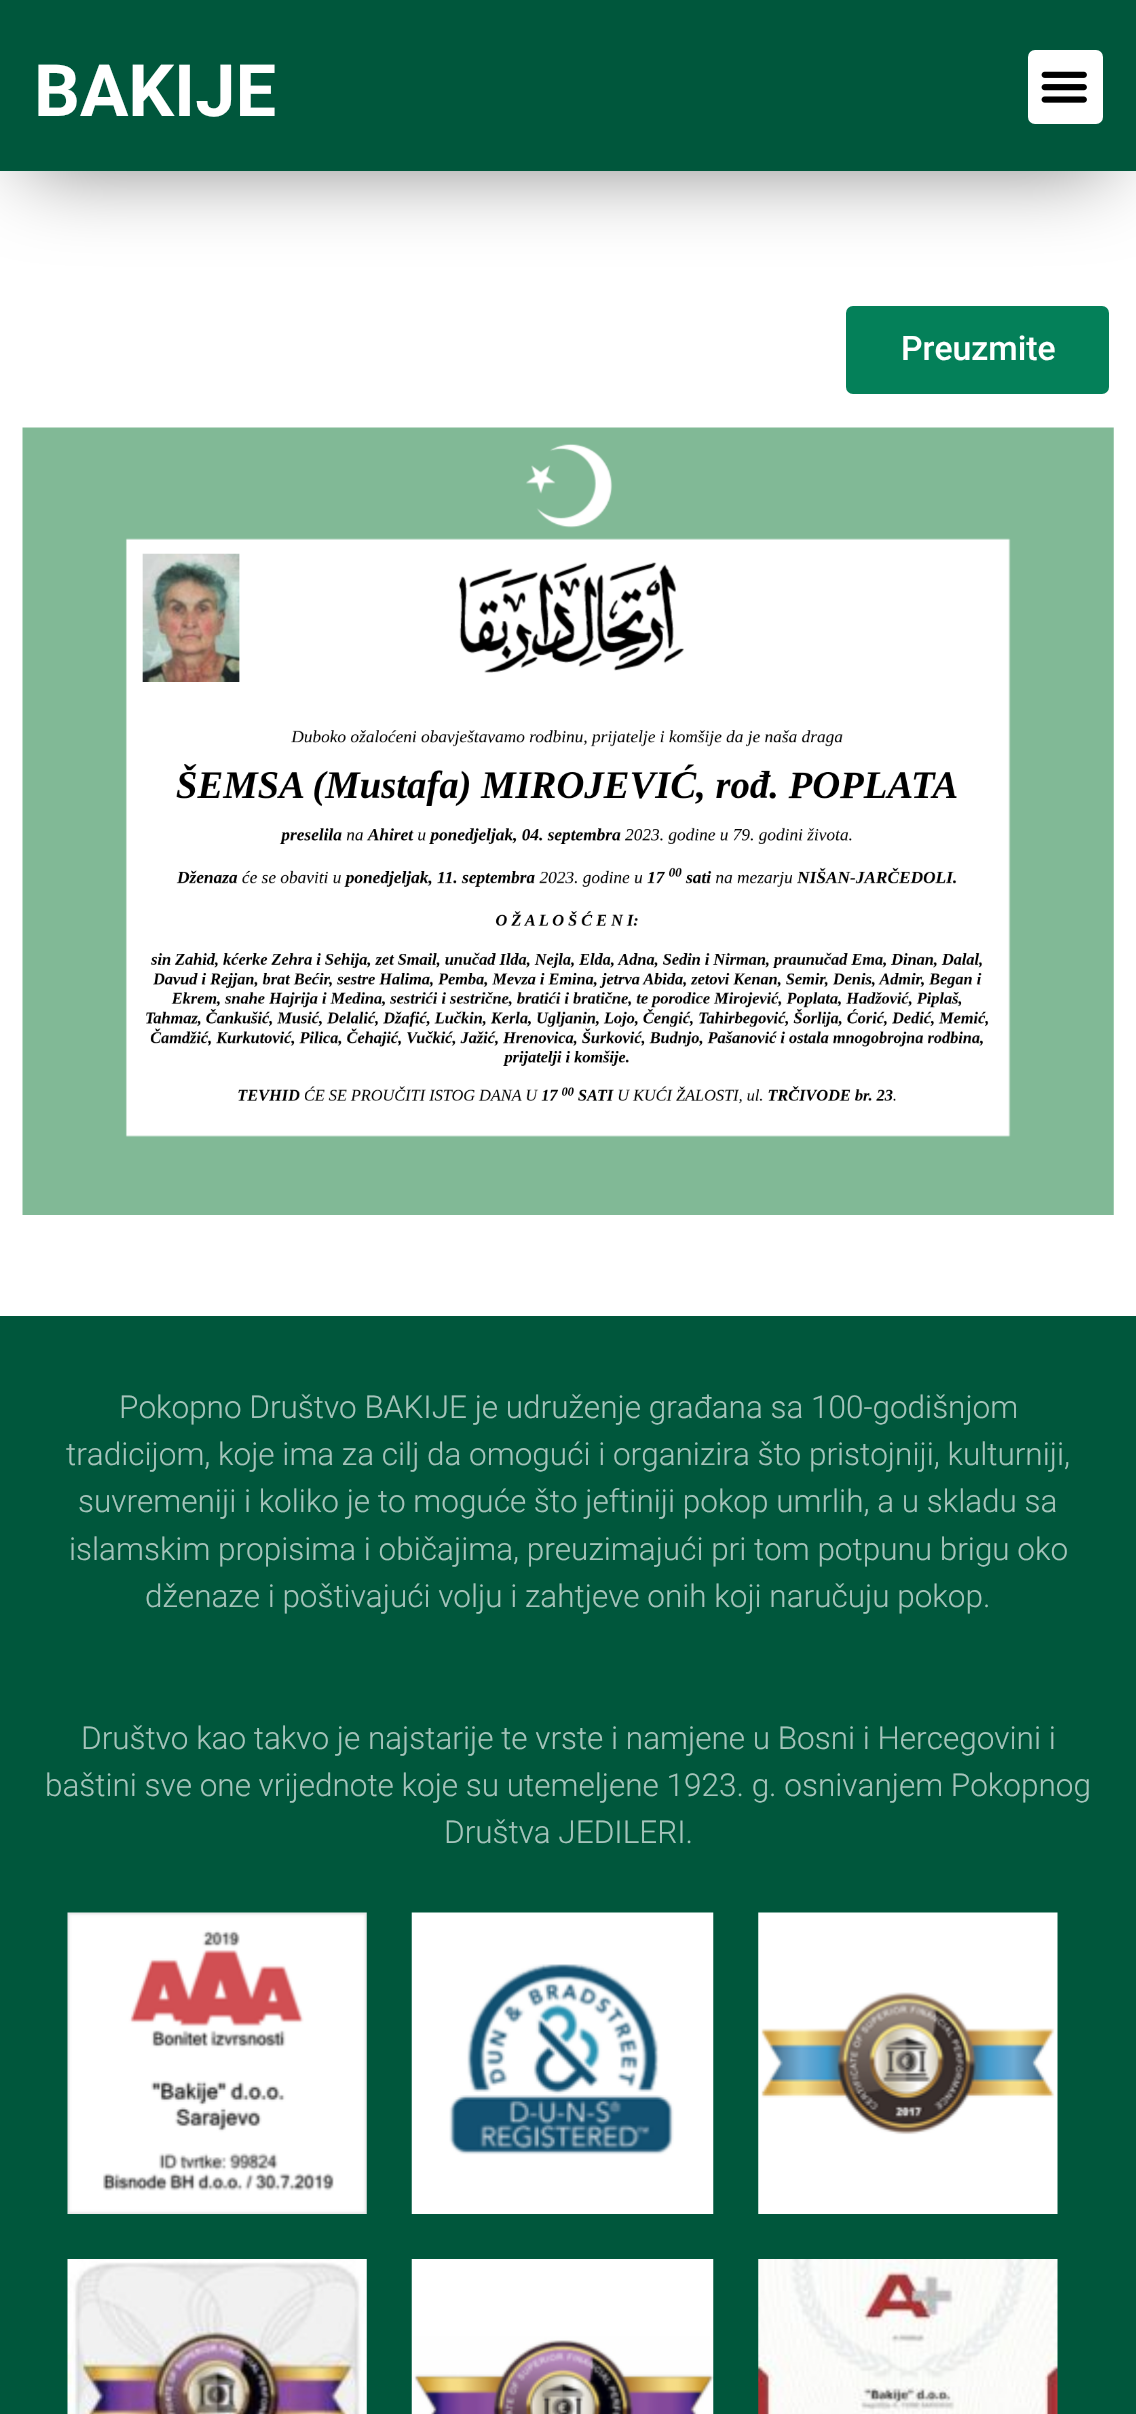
void draw(SkCanvas* canvas) {
    SkPaint paint;
    paint.setAntiAlias(true);
    auto face = [&](const char* family, int weight, float size, bool italic = false) {
        SkFontStyle style(weight, SkFontStyle::kNormal_Width,
            italic ? SkFontStyle::kItalic_Slant : SkFontStyle::kUpright_Slant);
        SkFont result(fontMgr->matchFamilyStyle(family, style), size);
        result.setSubpixel(true);
        return result;
    };
    auto write = [&](const char* s, float x, float y, const SkFont& font, SkColor color) {
        SkPaint ink(SkColor4f::FromColor(color));
        ink.setAntiAlias(true);
        canvas->drawString(s, x, y, font, ink);
    };
    auto block = [&](float x, float y, float w, float h, SkColor color) {
        SkPaint ink(SkColor4f::FromColor(color));
        ink.setAntiAlias(true);
        canvas->drawRect(SkRect::MakeXYWH(x, y, w, h), ink);
    };
    auto card = [&](float x, float y, float w, float h, float radius, SkColor color) {
        SkPaint ink(SkColor4f::FromColor(color));
        ink.setAntiAlias(true);
        canvas->drawRoundRect(SkRect::MakeXYWH(x, y, w, h), radius, radius, ink);
    };
    auto paste = [&](const char* path, float x, float y, float w, float h) {
        auto image = SkImages::DeferredFromEncodedData(SkData::MakeFromFileName(path));
        canvas->drawImageRect(image, SkRect::MakeXYWH(x, y, w, h), SkSamplingOptions());
    };
    canvas->clear(SK_ColorWHITE);
    paint.setColor(SkColorSetARGB(128, 0, 0, 0));
    paint.setMaskFilter(SkMaskFilter::MakeBlur(kNormal_SkBlurStyle, 41.5f));
    canvas->drawRect(SkRect::MakeXYWH(27, 50, 1082, 117), paint);
    paint.setMaskFilter(nullptr);
    block(0, 0, 1136, 171, SkColorSetRGB(0, 87, 60));
    auto kFont1 = face("Roboto", 700, 72);
    write("BAKIJE", 34, 116, kFont1, SK_ColorWHITE);
    card(1028, 50, 75, 74, 7, SK_ColorWHITE);
    paste("pic1.png", 1041, 71, 46, 32);
    card(846, 306, 263, 88, 7, SkColorSetRGB(4, 128, 89));
    auto kFont2 = face("Roboto", 500, 33.75f);
    write("Preuzmite", 901, 360, kFont2, SK_ColorWHITE);
    paste("pic2.png", 22, 427, 1092, 788);
    block(0, 1316, 1136, 1098, SkColorSetRGB(0, 87, 60));
    auto kFont3 = face("Roboto", 300, 31.5f);
    write("Pokopno Društvo BAKIJE je udruženje građana sa 100-godišnjom", 119, 1418, kFont3, SkColorSetRGB(166, 196, 187));
    write("tradicijom, koje ima za cilj da omogući i organizira što pristojniji, kulturniji,", 66, 1465, kFont3, SkColorSetRGB(166, 196, 187));
    write("suvremeniji i koliko je to moguće što jeftiniji pokop umrlih, a u skladu sa", 78, 1512, kFont3, SkColorSetRGB(166, 196, 187));
    write("islamskim propisima i običajima, preuzimajući pri tom potpunu brigu oko", 69, 1560, kFont3, SkColorSetRGB(166, 196, 187));
    write("dženaze i poštivajući volju i zahtjeve onih koji naručuju pokop.", 145, 1607, kFont3, SkColorSetRGB(166, 196, 187));
    write("Društvo kao takvo je najstarije te vrste i namjene u Bosni i Hercegovini i", 81, 1749, kFont3, SkColorSetRGB(166, 196, 187));
    write("baštini sve one vrijednote koje su utemeljene 1923. g. osnivanjem Pokopnog", 45, 1796, kFont3, SkColorSetRGB(166, 196, 187));
    write("Društva JEDILERI.", 444, 1843, kFont3, SkColorSetRGB(166, 196, 187));
    paste("pic3.png", 67, 1912, 300, 302);
    paste("pic4.png", 411, 1912, 303, 302);
    paste("pic5.png", 758, 1912, 300, 302);
    paste("pic6.png", 67, 2259, 300, 155);
    paste("pic7.png", 411, 2259, 303, 155);
    paste("pic8.png", 758, 2259, 300, 155);
}
